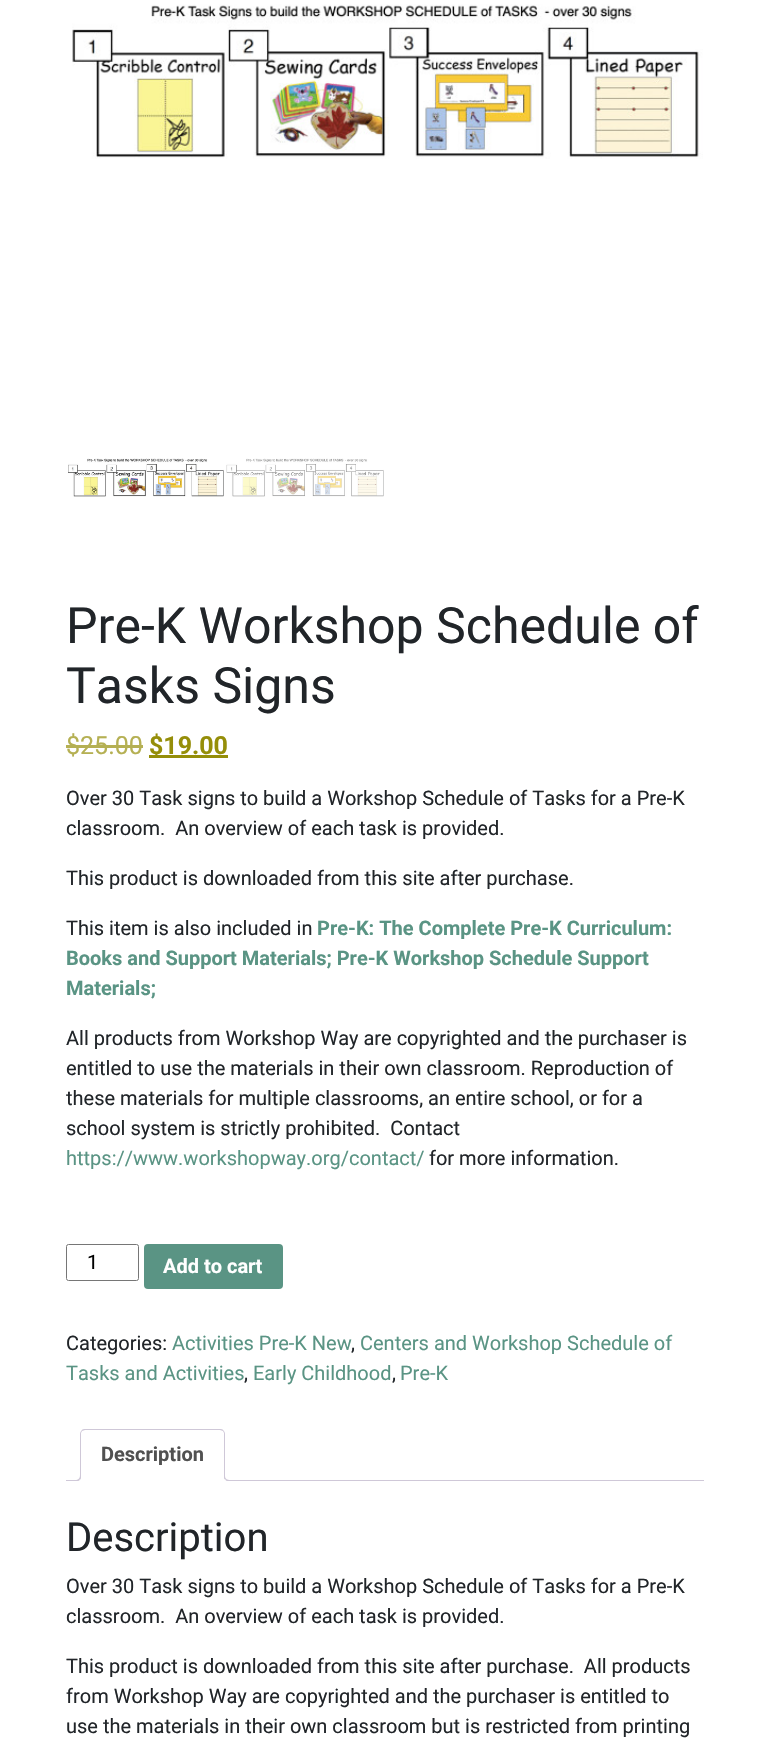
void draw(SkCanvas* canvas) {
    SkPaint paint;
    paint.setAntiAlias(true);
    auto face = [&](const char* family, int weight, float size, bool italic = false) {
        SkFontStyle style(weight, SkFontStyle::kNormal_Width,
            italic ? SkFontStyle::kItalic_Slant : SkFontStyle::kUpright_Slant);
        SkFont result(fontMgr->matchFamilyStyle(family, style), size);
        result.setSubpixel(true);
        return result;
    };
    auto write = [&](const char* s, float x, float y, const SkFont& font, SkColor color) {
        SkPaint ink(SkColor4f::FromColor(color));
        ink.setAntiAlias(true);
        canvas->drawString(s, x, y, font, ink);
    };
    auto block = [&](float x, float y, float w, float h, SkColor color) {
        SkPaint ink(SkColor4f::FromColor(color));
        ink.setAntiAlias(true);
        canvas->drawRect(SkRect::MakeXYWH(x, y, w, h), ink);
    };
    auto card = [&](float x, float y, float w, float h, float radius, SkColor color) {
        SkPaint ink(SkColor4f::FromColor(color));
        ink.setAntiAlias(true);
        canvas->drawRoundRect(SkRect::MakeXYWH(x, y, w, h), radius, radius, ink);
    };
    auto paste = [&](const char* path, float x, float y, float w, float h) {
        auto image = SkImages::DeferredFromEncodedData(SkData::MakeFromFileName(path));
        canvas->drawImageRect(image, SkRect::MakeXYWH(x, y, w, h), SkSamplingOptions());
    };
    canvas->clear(SK_ColorWHITE);
    paste("pic1.png", 72, 4, 631, 155);
    paste("pic2.png", 68, 458, 156, 39);
    paste("pic3.png", 226, 458, 158, 39);
    auto kFont1 = face("Roboto", 400, 50);
    write("Pre-K Workshop Schedule of", 66, 643, kFont1, SkColorSetRGB(33, 37, 41));
    write("Tasks Signs", 66, 703, kFont1, SkColorSetRGB(33, 37, 41));
    auto kFont2 = face("Roboto", 400, 25);
    write("$25.00", 66, 754, kFont2, SkColorSetRGB(181, 176, 83));
    block(66, 745, 77, 3, SkColorSetRGB(181, 176, 83));
    block(149, 755, 79, 3, SkColorSetRGB(149, 142, 9));
    auto kFont3 = face("Roboto", 700, 25);
    write("$19.00", 149, 754, kFont3, SkColorSetRGB(149, 142, 9));
    auto kFont4 = face("Roboto", 400, 20);
    write("Over 30 Task signs to build a Workshop Schedule of Tasks for a Pre-K", 66, 805, kFont4, SkColorSetRGB(33, 37, 41));
    write("classroom.  An overview of each task is provided.", 66, 835, kFont4, SkColorSetRGB(33, 37, 41));
    write("This product is downloaded from this site after purchase.", 66, 885, kFont4, SkColorSetRGB(33, 37, 41));
    write("This item is also included in", 66, 935, kFont4, SkColorSetRGB(33, 37, 41));
    auto kFont5 = face("Roboto", 700, 20);
    write("Pre-K: The Complete Pre-K Curriculum:", 317, 935, kFont5, SkColorSetRGB(90, 148, 132));
    write("Books and Support Materials; Pre-K Workshop Schedule Support", 66, 965, kFont5, SkColorSetRGB(90, 148, 132));
    write("Materials;", 66, 995, kFont5, SkColorSetRGB(90, 148, 132));
    write("All products from Workshop Way are copyrighted and the purchaser is", 66, 1045, kFont4, SkColorSetRGB(33, 37, 41));
    write("entitled to use the materials in their own classroom. Reproduction of", 66, 1075, kFont4, SkColorSetRGB(33, 37, 41));
    write("these materials for multiple classrooms, an entire school, or for a", 66, 1105, kFont4, SkColorSetRGB(33, 37, 41));
    write("school system is strictly prohibited.  Contact", 66, 1135, kFont4, SkColorSetRGB(33, 37, 41));
    write("https://www.workshopway.org/contact/", 66, 1165, kFont4, SkColorSetRGB(90, 148, 132));
    write("for more information.", 429, 1165, kFont4, SkColorSetRGB(33, 37, 41));
    paint.setStyle(SkPaint::kStroke_Style);
    paint.setStrokeWidth(1);
    paint.setColor(SkColorSetRGB(118, 118, 118));
    canvas->drawRoundRect(SkRect::MakeXYWH(66.5f, 1244.5f, 72, 36), 2, 2, paint);
    write("1", 87, 1269, kFont4, SK_ColorBLACK);
    card(144, 1244, 139, 45, 4, SkColorSetRGB(90, 148, 132));
    write("Add to cart", 163, 1273, kFont5, SK_ColorWHITE);
    write("Categories:", 66, 1350, kFont4, SkColorSetRGB(33, 37, 41));
    write("Activities Pre-K New", 172, 1350, kFont4, SkColorSetRGB(90, 148, 132));
    write(",", 351, 1350, kFont4, SkColorSetRGB(33, 37, 41));
    write("Centers and Workshop Schedule of", 360, 1350, kFont4, SkColorSetRGB(90, 148, 132));
    write("Tasks and Activities", 66, 1380, kFont4, SkColorSetRGB(90, 148, 132));
    write(",", 244, 1380, kFont4, SkColorSetRGB(33, 37, 41));
    write("Early Childhood", 253, 1380, kFont4, SkColorSetRGB(90, 148, 132));
    write(",", 392, 1380, kFont4, SkColorSetRGB(33, 37, 41));
    write("Pre-K", 400, 1380, kFont4, SkColorSetRGB(90, 148, 132));
    block(66, 1480, 638, 1, SkColorSetRGB(207, 200, 216));
    paint.setStyle(SkPaint::kFill_Style);
    paint.setColor(SK_ColorWHITE);
    canvas->drawPath(SkPathBuilder().moveTo(85, 1429).lineTo(220, 1429).cubicTo(223, 1429, 225, 1431, 225, 1434).lineTo(225, 1481).lineTo(80, 1481).lineTo(80, 1434).cubicTo(80, 1431, 82, 1429, 85, 1429).close().detach(), paint);
    paint.setColor(SkColorSetRGB(207, 200, 216));
    canvas->drawPath(SkPathBuilder().moveTo(85, 1429).cubicTo(84, 1429, 82, 1429, 82, 1430).lineTo(82, 1431).lineTo(85, 1430).lineTo(220, 1430).lineTo(223, 1431).lineTo(223, 1430).cubicTo(223, 1429, 221, 1429, 220, 1429).close().detach(), paint);
    canvas->drawPath(SkPathBuilder().moveTo(223, 1430).cubicTo(224, 1431, 225, 1432, 225, 1434).lineTo(225, 1481).lineTo(224, 1480).lineTo(224, 1433).lineTo(223, 1431).close().detach(), paint);
    paint.setColor(SK_ColorWHITE);
    canvas->drawPath(SkPathBuilder().moveTo(225, 1481).lineTo(80, 1481).lineTo(81, 1480).lineTo(224, 1480).close().detach(), paint);
    paint.setColor(SkColorSetRGB(207, 200, 216));
    canvas->drawPath(SkPathBuilder().moveTo(80, 1434).lineTo(80, 1481).lineTo(81, 1480).lineTo(81, 1433).lineTo(82, 1431).lineTo(82, 1430).cubicTo(81, 1431, 80, 1432, 80, 1434).close().detach(), paint);
    write("Description", 101, 1461, kFont5, SkColorSetRGB(81, 81, 81));
    canvas->save();
    canvas->clipRect(SkRect::MakeXYWH(66, 1429, 638, 52));
    paint.setColor(SK_ColorWHITE);
    canvas->drawPath(SkPathBuilder().moveTo(78, 1481).lineTo(78, 1484).cubicTo(82, 1484, 84, 1482, 84, 1478).lineTo(81, 1478).cubicTo(80.5f, 1479.5f, 79.5f, 1480.5f, 78, 1481).close().detach(), paint);
    canvas->restore();
    paint.setColor(SkColorSetRGB(207, 200, 216));
    canvas->drawPath(SkPathBuilder(SkPathFillType::kEvenOdd).moveTo(75, 1475).lineTo(81, 1475).cubicTo(81, 1479.5f, 79.5f, 1481, 75, 1481).close().moveTo(75, 1475).lineTo(80, 1475).cubicTo(80, 1478.5f, 78.5f, 1480, 75, 1480).close().detach(), paint);
    canvas->save();
    canvas->clipRect(SkRect::MakeXYWH(66, 1429, 638, 52));
    paint.setColor(SK_ColorWHITE);
    canvas->drawPath(SkPathBuilder().moveTo(221, 1478).cubicTo(221, 1483, 223.5f, 1484, 228, 1484).lineTo(228, 1481).cubicTo(226, 1481, 224.5f, 1479.5f, 224, 1478).close().detach(), paint);
    canvas->restore();
    paint.setColor(SkColorSetRGB(207, 200, 216));
    canvas->drawPath(SkPathBuilder(SkPathFillType::kEvenOdd).moveTo(224, 1475).lineTo(230, 1475).lineTo(230, 1481).cubicTo(227, 1481, 224, 1480, 224, 1476).close().moveTo(225, 1475).lineTo(230, 1475).lineTo(230, 1480).cubicTo(227.5f, 1480, 225, 1479, 225, 1476).close().detach(), paint);
    auto kFont6 = face("Roboto", 400, 40);
    write("Description", 66, 1551, kFont6, SkColorSetRGB(33, 37, 41));
    write("Over 30 Task signs to build a Workshop Schedule of Tasks for a Pre-K", 66, 1593, kFont4, SkColorSetRGB(33, 37, 41));
    write("classroom.  An overview of each task is provided.", 66, 1623, kFont4, SkColorSetRGB(33, 37, 41));
    write("This product is downloaded from this site after purchase.  All products", 66, 1673, kFont4, SkColorSetRGB(33, 37, 41));
    write("from Workshop Way are copyrighted and the purchaser is entitled to", 66, 1703, kFont4, SkColorSetRGB(33, 37, 41));
    write("use the materials in their own classroom but is restricted from printing", 66, 1733, kFont4, SkColorSetRGB(33, 37, 41));
}
